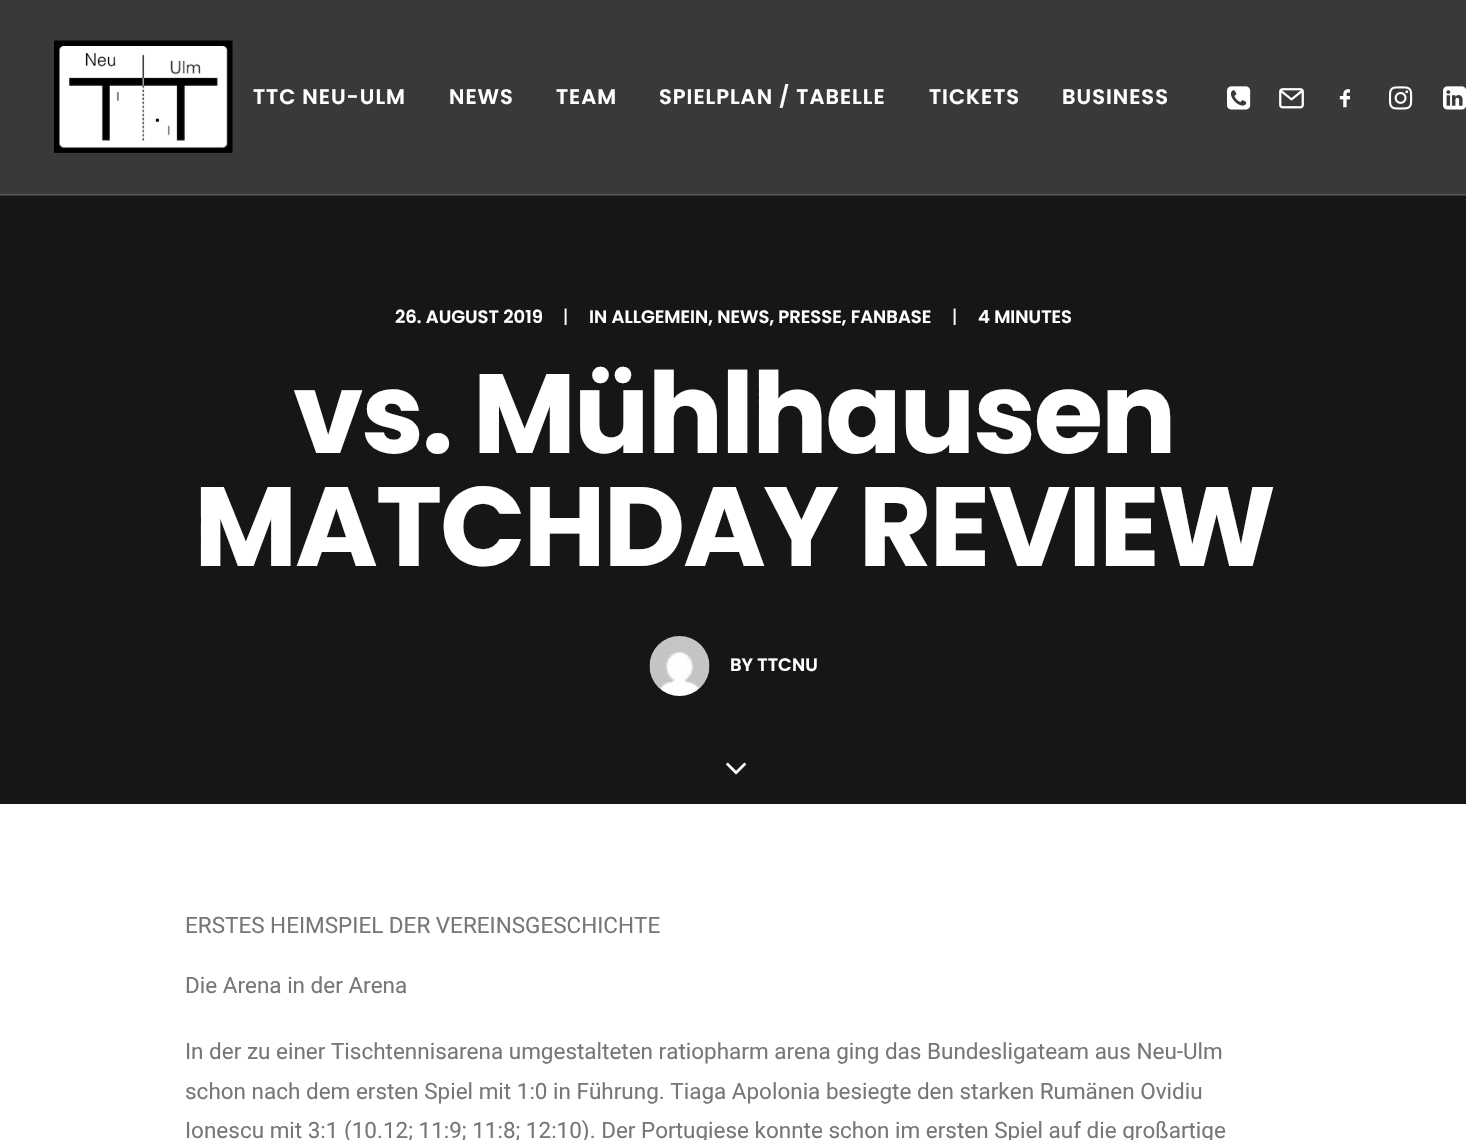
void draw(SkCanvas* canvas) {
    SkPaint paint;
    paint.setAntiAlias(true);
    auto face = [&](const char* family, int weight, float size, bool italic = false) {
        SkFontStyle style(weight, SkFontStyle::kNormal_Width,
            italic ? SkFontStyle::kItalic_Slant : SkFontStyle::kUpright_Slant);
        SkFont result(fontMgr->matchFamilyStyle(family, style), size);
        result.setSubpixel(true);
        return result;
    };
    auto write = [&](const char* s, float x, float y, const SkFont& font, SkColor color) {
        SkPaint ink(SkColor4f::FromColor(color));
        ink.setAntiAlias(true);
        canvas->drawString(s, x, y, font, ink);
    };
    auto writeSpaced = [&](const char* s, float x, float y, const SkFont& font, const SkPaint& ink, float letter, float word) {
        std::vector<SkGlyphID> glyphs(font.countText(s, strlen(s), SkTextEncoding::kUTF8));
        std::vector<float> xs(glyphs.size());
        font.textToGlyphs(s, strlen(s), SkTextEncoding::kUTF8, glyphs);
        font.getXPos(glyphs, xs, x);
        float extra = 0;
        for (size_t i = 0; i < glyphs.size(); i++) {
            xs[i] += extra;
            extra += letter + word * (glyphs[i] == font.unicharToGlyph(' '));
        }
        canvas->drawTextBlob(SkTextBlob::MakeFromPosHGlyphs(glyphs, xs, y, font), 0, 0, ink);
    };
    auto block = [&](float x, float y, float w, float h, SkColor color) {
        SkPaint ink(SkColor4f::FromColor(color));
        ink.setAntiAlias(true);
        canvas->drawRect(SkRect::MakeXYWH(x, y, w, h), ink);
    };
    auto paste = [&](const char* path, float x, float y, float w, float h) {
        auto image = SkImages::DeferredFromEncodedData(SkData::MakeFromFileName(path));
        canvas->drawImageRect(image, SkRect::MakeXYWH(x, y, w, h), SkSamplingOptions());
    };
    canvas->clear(SkColorSetRGB(20, 22, 24));
    block(0, 0, 1466, 195, SkColorSetRGB(55, 57, 59));
    block(0, 194, 1466, 2, SkColorSetARGB(38, 255, 255, 255));
    paste("pic1.png", 54, 40, 179, 113);
    auto kFont1 = face("Poppins", 600, 21);
    paint.setColor(SK_ColorWHITE);
    writeSpaced("TTC NEU-ULM", 253, 104, kFont1, paint, 1, 0);
    writeSpaced("NEWS", 449, 104, kFont1, paint, 1, 0);
    writeSpaced("TEAM", 556, 104, kFont1, paint, 1, 0);
    writeSpaced("SPIELPLAN / TABELLE", 659, 104, kFont1, paint, 1, 0);
    writeSpaced("TICKETS", 929, 104, kFont1, paint, 1, 0);
    writeSpaced("BUSINESS", 1062, 104, kFont1, paint, 1, 0);
    paste("pic2.png", 1227, 86, 24, 24);
    paste("pic3.png", 1279, 88, 25, 21);
    paste("pic4.png", 1339, 89, 11, 19);
    paste("pic5.png", 1389, 86, 24, 24);
    paste("pic6.png", 1443, 86, 23, 24);
    auto kFont2 = face("Poppins", 600, 18);
    write("26. AUGUST 2019", 395, 323, kFont2, SK_ColorWHITE);
    auto kFont3 = face("Poppins", 400, 18);
    write("|", 563, 323, kFont3, SK_ColorWHITE);
    write("IN ALLGEMEIN, NEWS, PRESSE, FANBASE", 589, 323, kFont2, SK_ColorWHITE);
    write("|", 952, 323, kFont3, SK_ColorWHITE);
    write("4 MINUTES", 978, 323, kFont2, SK_ColorWHITE);
    auto kFont4 = face("Poppins", 700, 112.5f);
    writeSpaced("vs. Mühlhausen", 293, 453, kFont4, paint, -2.25f, 0);
    writeSpaced("MATCHDAY REVIEW", 194, 566, kFont4, paint, -2.25f, 0);
    paste("pic7.png", 649, 636, 61, 60);
    write("BY TTCNU", 730, 671, kFont2, SK_ColorWHITE);
    paste("pic8.png", 726, 762, 21, 13);
    block(0, 804, 1466, 336, SK_ColorWHITE);
    auto kFont5 = face("Roboto", 400, 22.5f);
    write("ERSTES HEIMSPIEL DER VEREINSGESCHICHTE", 185, 933, kFont5, SkColorSetRGB(119, 119, 119));
    write("Die Arena in der Arena", 185, 993, kFont5, SkColorSetRGB(119, 119, 119));
    write("In der zu einer Tischtennisarena umgestalteten ratiopharm arena ging das Bundesligateam aus Neu-Ulm", 185, 1059, kFont5, SkColorSetRGB(119, 119, 119));
    write("schon nach dem ersten Spiel mit 1:0 in Führung. Tiaga Apolonia besiegte den starken Rumänen Ovidiu", 185, 1099, kFont5, SkColorSetRGB(119, 119, 119));
    write("Ionescu mit 3:1 (10.12; 11:9; 11:8; 12:10). Der Portugiese konnte schon im ersten Spiel auf die großartige", 185, 1138, kFont5, SkColorSetRGB(119, 119, 119));
}
